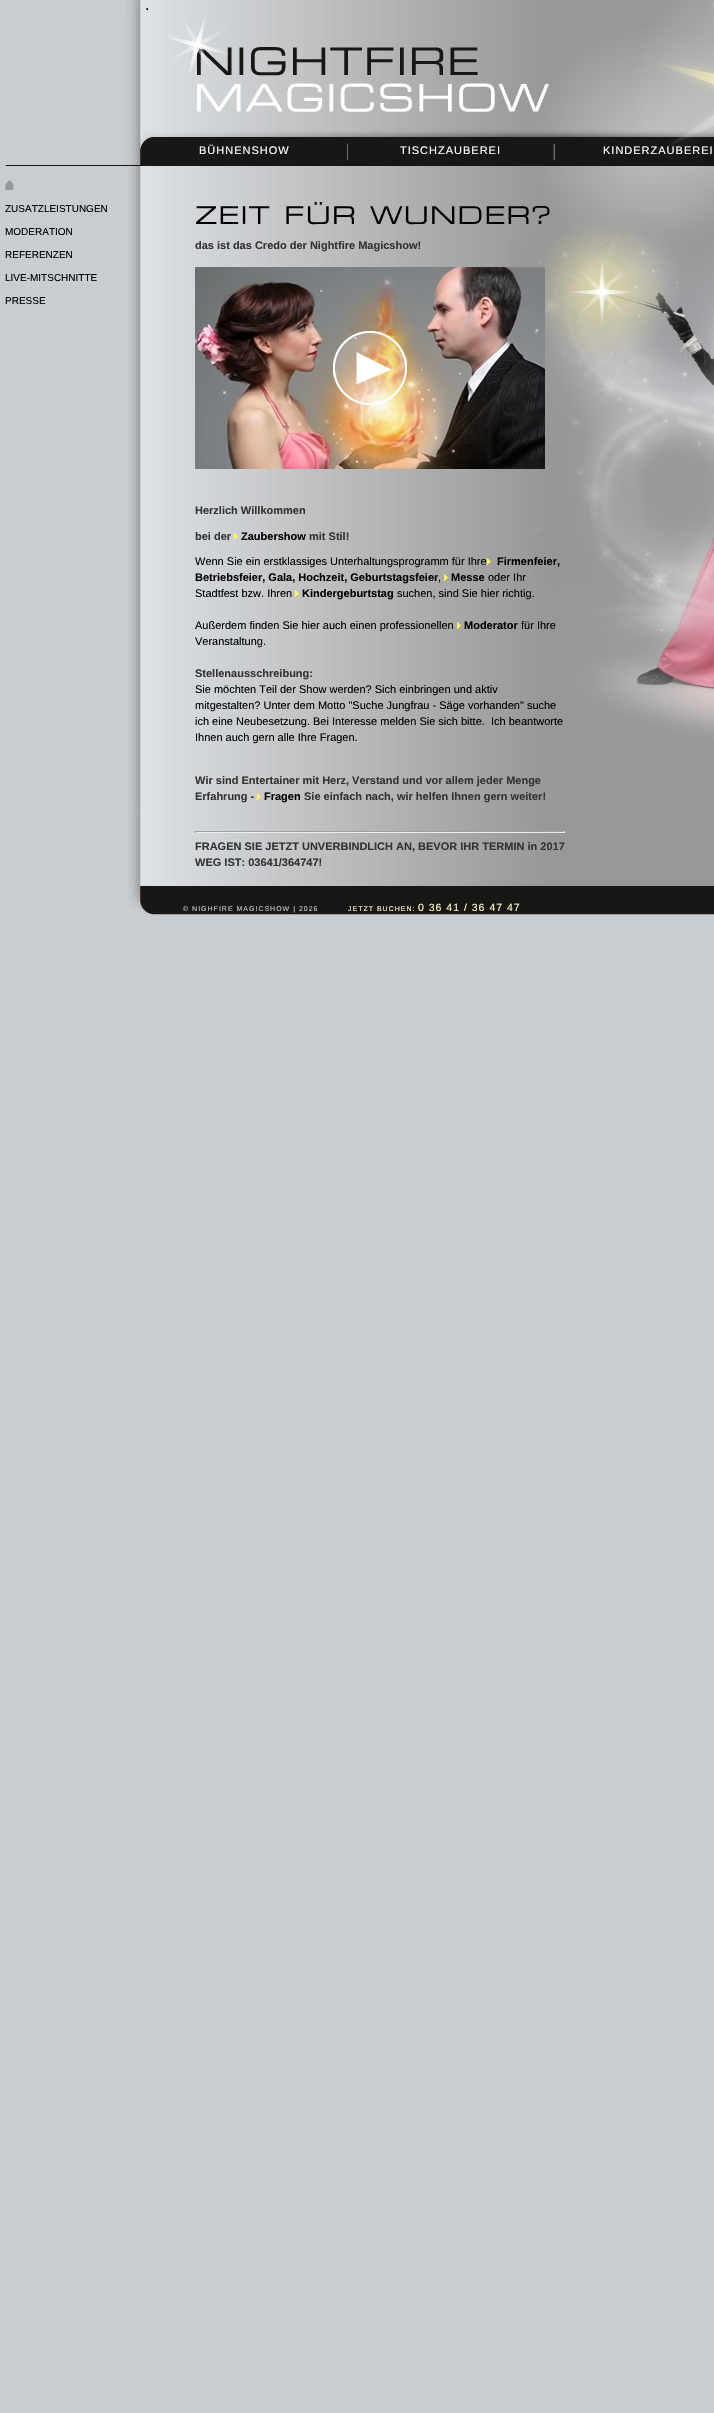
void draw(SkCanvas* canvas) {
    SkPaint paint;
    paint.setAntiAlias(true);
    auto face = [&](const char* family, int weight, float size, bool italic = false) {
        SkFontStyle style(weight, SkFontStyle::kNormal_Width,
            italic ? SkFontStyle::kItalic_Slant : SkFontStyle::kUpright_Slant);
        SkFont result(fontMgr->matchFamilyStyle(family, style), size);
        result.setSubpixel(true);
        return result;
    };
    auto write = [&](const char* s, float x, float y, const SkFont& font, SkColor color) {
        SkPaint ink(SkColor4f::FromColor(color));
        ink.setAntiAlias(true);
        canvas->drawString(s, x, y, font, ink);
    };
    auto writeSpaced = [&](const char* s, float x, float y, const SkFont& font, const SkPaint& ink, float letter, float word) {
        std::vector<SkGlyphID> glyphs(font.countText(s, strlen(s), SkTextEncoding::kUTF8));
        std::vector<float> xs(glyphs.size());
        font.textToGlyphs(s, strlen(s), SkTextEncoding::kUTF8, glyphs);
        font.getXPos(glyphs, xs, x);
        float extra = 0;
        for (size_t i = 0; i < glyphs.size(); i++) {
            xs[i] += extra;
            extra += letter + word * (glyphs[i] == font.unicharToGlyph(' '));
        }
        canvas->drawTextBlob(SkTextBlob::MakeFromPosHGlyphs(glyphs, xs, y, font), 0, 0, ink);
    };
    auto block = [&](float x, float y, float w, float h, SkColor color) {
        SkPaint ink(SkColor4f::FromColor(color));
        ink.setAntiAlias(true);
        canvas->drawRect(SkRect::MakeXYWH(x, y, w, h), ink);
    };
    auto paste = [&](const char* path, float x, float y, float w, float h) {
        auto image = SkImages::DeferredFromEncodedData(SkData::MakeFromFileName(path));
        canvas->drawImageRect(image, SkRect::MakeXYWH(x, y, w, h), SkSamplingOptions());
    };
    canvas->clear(SkColorSetRGB(200, 205, 209));
    paste("pic1.png", 128, 166, 586, 720);
    paste("pic2.png", 5, 0, 709, 166);
    auto kFont1 = face("Liberation Sans", 400, 16);
    write(".", 145, 10, kFont1, SK_ColorBLACK);
    paste("pic3.png", 658, 0, 56, 147);
    paste("pic4.png", 168, 15, 381, 97);
    auto kFont2 = face("Liberation Sans", 400, 11);
    paint.setColor(SK_ColorWHITE);
    writeSpaced("BÜHNENSHOW", 199, 154, kFont2, paint, 1, 0);
    writeSpaced("TISCHZAUBEREI", 400, 154, kFont2, paint, 1, 0);
    writeSpaced("KINDERZAUBEREI", 603, 154, kFont2, paint, 1, 0);
    paste("pic5.png", 5, 180, 9, 10);
    auto kFont3 = face("Liberation Sans", 400, 10);
    write("ZUSATZLEISTUNGEN", 5, 212, kFont3, SK_ColorBLACK);
    write("MODERATION", 5, 235, kFont3, SK_ColorBLACK);
    write("REFERENZEN", 5, 258, kFont3, SK_ColorBLACK);
    write("LIVE-MITSCHNITTE", 5, 281, kFont3, SK_ColorBLACK);
    write("PRESSE", 5, 304, kFont3, SK_ColorBLACK);
    paste("pic6.png", 196, 206, 74, 18);
    paste("pic7.png", 286, 202, 69, 23);
    paste("pic8.png", 370, 206, 180, 19);
    auto kFont4 = face("Liberation Sans", 700, 11);
    write("das ist das Credo der Nightfire Magicshow!", 195, 249, kFont4, SkColorSetRGB(51, 51, 51));
    paste("pic9.png", 195, 267, 350, 202);
    write("Herzlich Willkommen", 195, 514, kFont4, SkColorSetRGB(51, 51, 51));
    write("bei der", 195, 540, kFont4, SkColorSetRGB(51, 51, 51));
    paste("pic10.png", 234, 533, 4, 7);
    write("Zaubershow", 241, 540, kFont4, SK_ColorBLACK);
    write("mit Stil!", 309, 540, kFont4, SkColorSetRGB(51, 51, 51));
    write("Wenn Sie ein erstklassiges Unterhaltungsprogramm für Ihre", 195, 565, kFont2, SK_ColorBLACK);
    paste("pic11.png", 487, 558, 4, 7);
    write("Firmenfeier,", 497, 565, kFont4, SK_ColorBLACK);
    write("Betriebsfeier, Gala, Hochzeit, Geburtstagsfeier", 195, 581, kFont4, SK_ColorBLACK);
    write(",", 438, 581, kFont2, SK_ColorBLACK);
    paste("pic12.png", 444, 574, 4, 7);
    write("Messe", 451, 581, kFont4, SK_ColorBLACK);
    write("oder Ihr", 488, 581, kFont2, SK_ColorBLACK);
    write("Stadtfest bzw. Ihren", 195, 597, kFont2, SK_ColorBLACK);
    paste("pic13.png", 295, 590, 4, 7);
    write("Kindergeburtstag", 302, 597, kFont4, SK_ColorBLACK);
    write("suchen, sind Sie hier richtig.", 397, 597, kFont2, SK_ColorBLACK);
    write("Außerdem finden Sie hier auch einen professionellen", 195, 629, kFont2, SK_ColorBLACK);
    paste("pic14.png", 457, 622, 4, 7);
    write("Moderator", 464, 629, kFont4, SK_ColorBLACK);
    write("für Ihre", 521, 629, kFont2, SK_ColorBLACK);
    write("Veranstaltung.", 195, 645, kFont2, SK_ColorBLACK);
    write("Stellenausschreibung:", 195, 677, kFont4, SkColorSetRGB(51, 51, 51));
    write("Sie möchten Teil der Show werden? Sich einbringen und aktiv", 195, 693, kFont2, SK_ColorBLACK);
    write("mitgestalten? Unter dem Motto \"Suche Jungfrau - Säge vorhanden\" suche", 195, 709, kFont2, SK_ColorBLACK);
    write("ich eine Neubesetzung. Bei Interesse melden Sie sich bitte.  Ich beantworte", 195, 725, kFont2, SK_ColorBLACK);
    write("Ihnen auch gern alle Ihre Fragen.", 195, 741, kFont2, SK_ColorBLACK);
    write("Wir sind Entertainer mit Herz, Verstand und vor allem jeder Menge", 195, 784, kFont4, SkColorSetRGB(51, 51, 51));
    write("Erfahrung -", 195, 800, kFont4, SkColorSetRGB(51, 51, 51));
    paste("pic15.png", 257, 793, 4, 7);
    write("Fragen", 264, 800, kFont4, SK_ColorBLACK);
    write("Sie einfach nach, wir helfen Ihnen gern weiter!", 304, 800, kFont4, SkColorSetRGB(51, 51, 51));
    block(195, 831, 370, 1, SkColorSetRGB(159, 159, 159));
    block(564, 831, 1, 2, SkColorSetRGB(238, 238, 238));
    block(195, 832, 370, 1, SkColorSetRGB(238, 238, 238));
    block(195, 831, 1, 2, SkColorSetRGB(159, 159, 159));
    write("FRAGEN SIE JETZT UNVERBINDLICH AN, BEVOR IHR TERMIN in 2017", 195, 850, kFont4, SkColorSetRGB(51, 51, 51));
    write("WEG IST: 03641/364747!", 195, 866, kFont4, SkColorSetRGB(51, 51, 51));
    paste("pic16.png", 128, 886, 586, 29);
    auto kFont5 = face("Liberation Sans", 400, 7);
    paint.setColor(SkColorSetRGB(203, 203, 203));
    writeSpaced("© NIGHFIRE MAGICSHOW | 2026", 183, 911, kFont5, paint, 1, 0);
    paint.setColor(SkColorSetRGB(253, 250, 195));
    writeSpaced("JETZT BUCHEN:", 348, 911, kFont5, paint, 1, 0);
    auto kFont6 = face("Liberation Sans", 400, 10.5f);
    writeSpaced("0 36 41 / 36 47 47", 418, 911, kFont6, paint, 1, 0);
}
